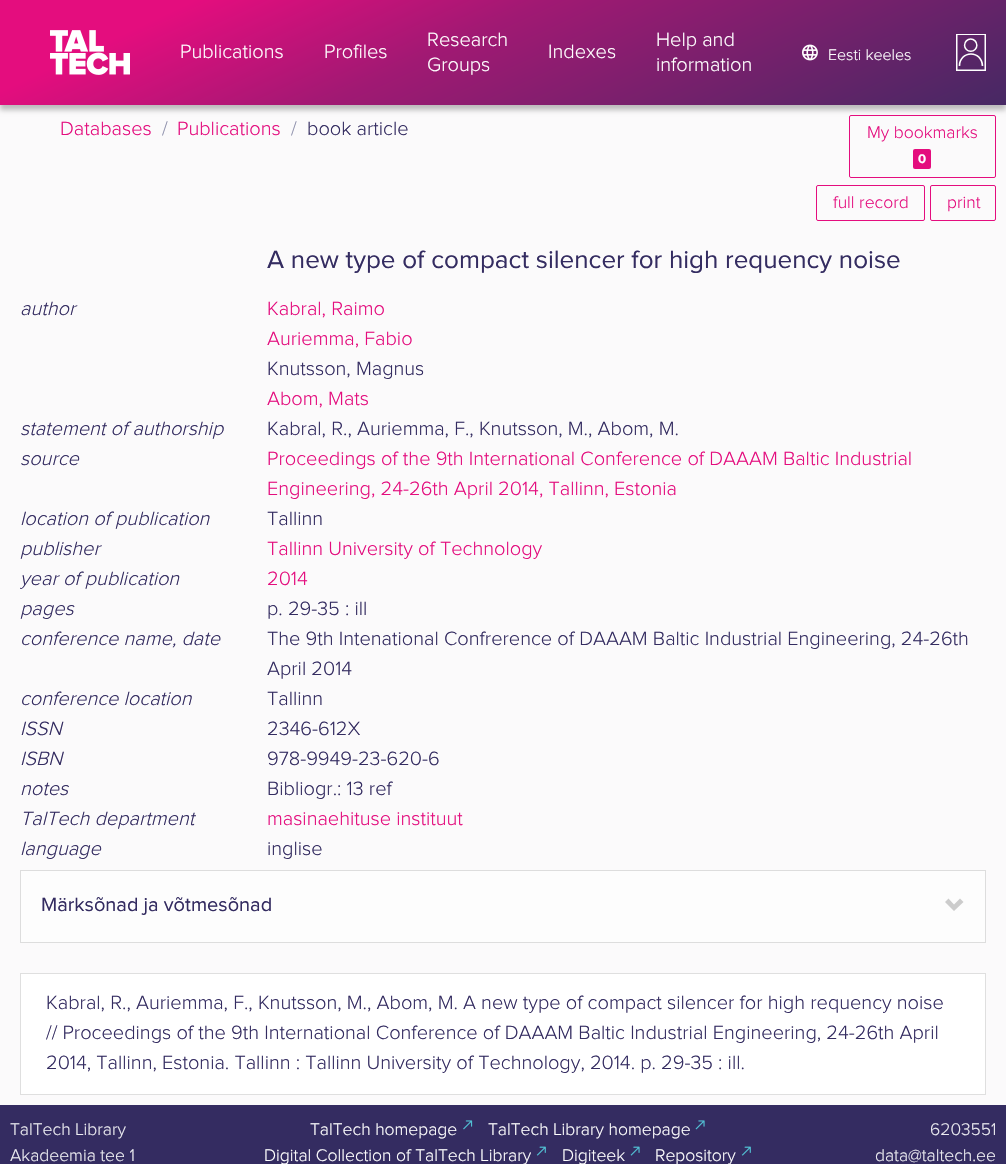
void draw(SkCanvas* canvas) {
    SkPaint paint;
    paint.setAntiAlias(true);
    auto face = [&](const char* family, int weight, float size, bool italic = false) {
        SkFontStyle style(weight, SkFontStyle::kNormal_Width,
            italic ? SkFontStyle::kItalic_Slant : SkFontStyle::kUpright_Slant);
        SkFont result(fontMgr->matchFamilyStyle(family, style), size);
        result.setSubpixel(true);
        return result;
    };
    auto write = [&](const char* s, float x, float y, const SkFont& font, SkColor color) {
        SkPaint ink(SkColor4f::FromColor(color));
        ink.setAntiAlias(true);
        canvas->drawString(s, x, y, font, ink);
    };
    auto block = [&](float x, float y, float w, float h, SkColor color) {
        SkPaint ink(SkColor4f::FromColor(color));
        ink.setAntiAlias(true);
        canvas->drawRect(SkRect::MakeXYWH(x, y, w, h), ink);
    };
    auto card = [&](float x, float y, float w, float h, float radius, SkColor color) {
        SkPaint ink(SkColor4f::FromColor(color));
        ink.setAntiAlias(true);
        canvas->drawRoundRect(SkRect::MakeXYWH(x, y, w, h), radius, radius, ink);
    };
    auto paste = [&](const char* path, float x, float y, float w, float h) {
        auto image = SkImages::DeferredFromEncodedData(SkData::MakeFromFileName(path));
        canvas->drawImageRect(image, SkRect::MakeXYWH(x, y, w, h), SkSamplingOptions());
    };
    canvas->clear(SkColorSetRGB(251, 250, 251));
    paint.setColor(SkColorSetARGB(64, 0, 0, 0));
    paint.setMaskFilter(SkMaskFilter::MakeBlur(kNormal_SkBlurStyle, 2.5f));
    canvas->drawRect(SkRect::MakeXYWH(0, 5, 1006, 105), paint);
    paint.setMaskFilter(nullptr);
    {
        const SkColor colors[] = {SkColorSetRGB(228, 13, 126), SkColorSetRGB(161, 25, 115), SkColorSetRGB(78, 39, 101), SkColorSetRGB(52, 44, 97)};
        const float stops[] = {0.14f, 0.39f, 0.84f, 1};
        const SkPoint ends[] = {{393, -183}, {642, 350}};
        paint.setShader(SkGradientShader::MakeLinear(ends, colors, stops, 4, SkTileMode::kClamp));
        paint.setAlpha(255);
    }
    canvas->drawRect(SkRect::MakeXYWH(0, 0, 1006, 105), paint);
    paste("pic1.png", 50, 30, 80, 45);
    auto kFont1 = face("Proxima Nova", 300, 20);
    write("Publications", 180, 58, kFont1, SK_ColorWHITE);
    write("Profiles", 324, 58, kFont1, SK_ColorWHITE);
    write("Research", 427, 46, kFont1, SK_ColorWHITE);
    write("Groups", 427, 71, kFont1, SK_ColorWHITE);
    write("Indexes", 548, 58, kFont1, SK_ColorWHITE);
    write("Help and", 656, 46, kFont1, SK_ColorWHITE);
    write("information", 656, 71, kFont1, SK_ColorWHITE);
    paste("pic2.png", 802, 44, 16, 17);
    auto kFont2 = face("Proxima Nova", 300, 16);
    write("Eesti keeles", 828, 60, kFont2, SK_ColorWHITE);
    paste("pic3.png", 956, 34, 30, 37);
    write("Databases", 60, 135, kFont1, SkColorSetRGB(228, 13, 126));
    write("/", 162, 135, kFont1, SkColorSetRGB(144, 146, 173));
    write("Publications", 177, 135, kFont1, SkColorSetRGB(228, 13, 126));
    write("/", 291, 135, kFont1, SkColorSetRGB(144, 146, 173));
    write("book article", 307, 135, kFont1, SkColorSetRGB(52, 44, 97));
    paint.setStyle(SkPaint::kStroke_Style);
    paint.setStrokeWidth(1);
    paint.setShader(nullptr);
    paint.setColor(SkColorSetRGB(228, 13, 126));
    canvas->drawRoundRect(SkRect::MakeXYWH(849.5f, 115.5f, 146, 62), 1.5f, 1.5f, paint);
    auto kFont3 = face("Proxima Nova", 300, 17.5f);
    write("My bookmarks", 867, 138, kFont3, SkColorSetRGB(228, 13, 126));
    card(913, 149, 18, 20, 2, SkColorSetRGB(228, 13, 126));
    auto kFont4 = face("Proxima Nova", 700, 13);
    write("0", 918, 163, kFont4, SK_ColorWHITE);
    canvas->drawRoundRect(SkRect::MakeXYWH(816.5f, 185.5f, 108, 35), 1.5f, 1.5f, paint);
    write("full record", 833, 208, kFont3, SkColorSetRGB(228, 13, 126));
    canvas->drawRoundRect(SkRect::MakeXYWH(930.5f, 185.5f, 65, 35), 1.5f, 1.5f, paint);
    write("print", 947, 208, kFont3, SkColorSetRGB(228, 13, 126));
    auto kFont5 = face("Proxima Nova", 400, 26);
    write("A new type of compact silencer for high requency noise", 267, 268, kFont5, SkColorSetRGB(52, 44, 97));
    auto kFont6 = face("Proxima Nova", 300, 20, true);
    write("author", 20, 315, kFont6, SkColorSetRGB(52, 44, 97));
    write("Kabral, Raimo", 267, 315, kFont1, SkColorSetRGB(228, 13, 126));
    write("Auriemma, Fabio", 267, 345, kFont1, SkColorSetRGB(228, 13, 126));
    write("Knutsson, Magnus", 267, 375, kFont1, SkColorSetRGB(52, 44, 97));
    write("Abom, Mats", 267, 405, kFont1, SkColorSetRGB(228, 13, 126));
    write("statement of authorship", 20, 435, kFont6, SkColorSetRGB(52, 44, 97));
    write("Kabral, R., Auriemma, F., Knutsson, M., Abom, M.", 267, 435, kFont1, SkColorSetRGB(52, 44, 97));
    write("source", 20, 465, kFont6, SkColorSetRGB(52, 44, 97));
    write("Proceedings of the 9th International Conference of DAAAM Baltic Industrial", 267, 465, kFont1, SkColorSetRGB(228, 13, 126));
    write("Engineering, 24-26th April 2014, Tallinn, Estonia", 267, 495, kFont1, SkColorSetRGB(228, 13, 126));
    write("location of publication", 20, 525, kFont6, SkColorSetRGB(52, 44, 97));
    write("Tallinn", 267, 525, kFont1, SkColorSetRGB(52, 44, 97));
    write("publisher", 20, 555, kFont6, SkColorSetRGB(52, 44, 97));
    write("Tallinn University of Technology", 267, 555, kFont1, SkColorSetRGB(228, 13, 126));
    write("year of publication", 20, 585, kFont6, SkColorSetRGB(52, 44, 97));
    write("2014", 267, 585, kFont1, SkColorSetRGB(228, 13, 126));
    write("pages", 20, 615, kFont6, SkColorSetRGB(52, 44, 97));
    write("p. 29-35 : ill", 267, 615, kFont1, SkColorSetRGB(52, 44, 97));
    write("conference name, date", 20, 645, kFont6, SkColorSetRGB(52, 44, 97));
    write("The 9th Intenational Confrerence of DAAAM Baltic Industrial Engineering, 24-26th", 267, 645, kFont1, SkColorSetRGB(52, 44, 97));
    write("April 2014", 267, 675, kFont1, SkColorSetRGB(52, 44, 97));
    write("conference location", 20, 705, kFont6, SkColorSetRGB(52, 44, 97));
    write("Tallinn", 267, 705, kFont1, SkColorSetRGB(52, 44, 97));
    write("ISSN", 20, 735, kFont6, SkColorSetRGB(52, 44, 97));
    write("2346-612X", 267, 735, kFont1, SkColorSetRGB(52, 44, 97));
    write("ISBN", 20, 765, kFont6, SkColorSetRGB(52, 44, 97));
    write("978-9949-23-620-6", 267, 765, kFont1, SkColorSetRGB(52, 44, 97));
    write("notes", 20, 795, kFont6, SkColorSetRGB(52, 44, 97));
    write("Bibliogr.: 13 ref", 267, 795, kFont1, SkColorSetRGB(52, 44, 97));
    write("TalTech department", 20, 825, kFont6, SkColorSetRGB(52, 44, 97));
    write("masinaehituse instituut", 267, 825, kFont1, SkColorSetRGB(228, 13, 126));
    write("language", 20, 855, kFont6, SkColorSetRGB(52, 44, 97));
    write("inglise", 267, 855, kFont1, SkColorSetRGB(52, 44, 97));
    paint.setStyle(SkPaint::kFill_Style);
    paint.setColor(SkColorSetRGB(253, 253, 253));
    canvas->drawRect(SkRect::MakeXYWH(20.5f, 870.5f, 965, 72), paint);
    paint.setStyle(SkPaint::kStroke_Style);
    paint.setColor(SkColorSetRGB(221, 221, 221));
    canvas->drawRect(SkRect::MakeXYWH(20.5f, 870.5f, 965, 72), paint);
    auto kFont7 = face("Proxima Nova", 400, 20);
    write("Märksõnad ja võtmesõnad", 41, 911, kFont7, SkColorSetRGB(52, 44, 97));
    paint.setStyle(SkPaint::kFill_Style);
    paint.setColor(SkColorSetRGB(204, 204, 204));
    canvas->drawPath(SkPathBuilder().moveTo(963.5f, 902).lineTo(954, 911).lineTo(945, 902).lineTo(948.5f, 898.5f).lineTo(954, 904.5f).lineTo(960, 898.5f).close().detach(), paint);
    paint.setColor(SK_ColorWHITE);
    canvas->drawRect(SkRect::MakeXYWH(20.5f, 973.5f, 965, 121), paint);
    paint.setStyle(SkPaint::kStroke_Style);
    paint.setColor(SkColorSetRGB(223, 223, 223));
    canvas->drawRect(SkRect::MakeXYWH(20.5f, 973.5f, 965, 121), paint);
    write("Kabral, R., Auriemma, F., Knutsson, M., Abom, M. A new type of compact silencer for high requency noise", 46, 1009, kFont1, SkColorSetRGB(52, 44, 97));
    write("// Proceedings of the 9th International Conference of DAAAM Baltic Industrial Engineering, 24-26th April", 46, 1039, kFont1, SkColorSetRGB(52, 44, 97));
    write("2014, Tallinn, Estonia. Tallinn : Tallinn University of Technology, 2014. p. 29-35 : ill.", 46, 1069, kFont1, SkColorSetRGB(52, 44, 97));
    block(0, 1105, 1006, 59, SkColorSetRGB(52, 44, 97));
    write("TalTech Library", 10, 1135, kFont3, SkColorSetRGB(236, 236, 241));
    write("Akadeemia tee 1", 10, 1161, kFont3, SkColorSetRGB(236, 236, 241));
    write("TalTech homepage", 310, 1135, kFont3, SK_ColorWHITE);
    paste("pic4.png", 463, 1120, 10, 10);
    write("TalTech Library homepage", 488, 1135, kFont3, SK_ColorWHITE);
    paste("pic5.png", 695, 1120, 10, 10);
    write("Digital Collection of TalTech Library", 264, 1161, kFont3, SK_ColorWHITE);
    paste("pic6.png", 536, 1146, 10, 10);
    write("Digiteek", 562, 1161, kFont3, SK_ColorWHITE);
    paste("pic7.png", 630, 1146, 10, 10);
    write("Repository", 655, 1161, kFont3, SK_ColorWHITE);
    paste("pic6.png", 741, 1146, 10, 10);
    write("6203551", 930, 1135, kFont3, SkColorSetRGB(236, 236, 241));
    write("data@taltech.ee", 875, 1161, kFont3, SkColorSetRGB(236, 236, 241));
}
